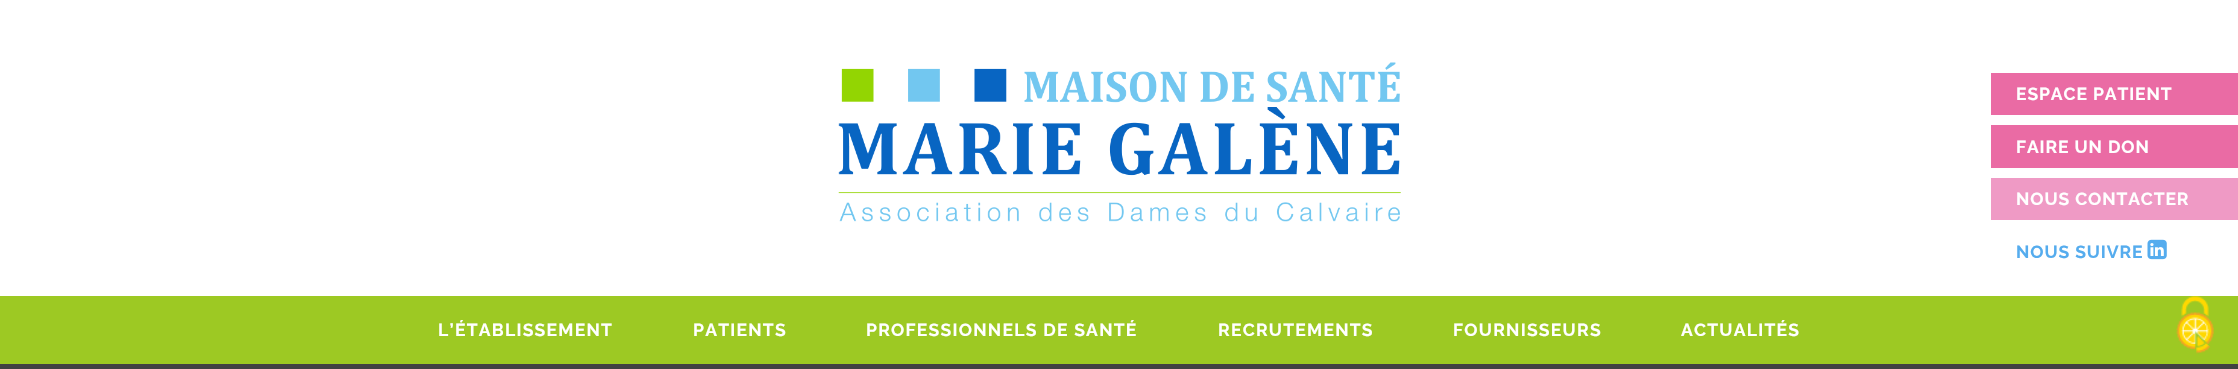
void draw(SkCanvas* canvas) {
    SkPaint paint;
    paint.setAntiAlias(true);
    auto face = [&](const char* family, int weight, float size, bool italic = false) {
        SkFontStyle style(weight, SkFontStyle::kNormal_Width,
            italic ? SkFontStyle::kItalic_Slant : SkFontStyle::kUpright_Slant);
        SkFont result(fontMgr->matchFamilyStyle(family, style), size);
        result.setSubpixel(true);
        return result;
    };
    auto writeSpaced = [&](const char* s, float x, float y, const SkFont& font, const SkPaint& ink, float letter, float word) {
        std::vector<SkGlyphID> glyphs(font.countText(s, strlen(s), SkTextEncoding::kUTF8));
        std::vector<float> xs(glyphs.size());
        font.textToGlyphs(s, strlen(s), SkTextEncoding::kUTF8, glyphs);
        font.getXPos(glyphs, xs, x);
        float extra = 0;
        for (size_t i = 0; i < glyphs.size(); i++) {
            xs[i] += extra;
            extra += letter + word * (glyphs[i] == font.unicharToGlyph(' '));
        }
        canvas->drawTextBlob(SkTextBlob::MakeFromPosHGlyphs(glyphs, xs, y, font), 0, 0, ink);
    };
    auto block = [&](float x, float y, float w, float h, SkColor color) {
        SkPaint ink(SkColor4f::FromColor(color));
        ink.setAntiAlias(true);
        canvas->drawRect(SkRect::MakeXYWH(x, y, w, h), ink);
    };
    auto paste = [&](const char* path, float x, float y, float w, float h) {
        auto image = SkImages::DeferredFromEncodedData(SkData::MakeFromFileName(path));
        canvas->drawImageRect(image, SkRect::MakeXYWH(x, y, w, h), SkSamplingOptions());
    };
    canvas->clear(SK_ColorWHITE);
    block(1991, 73, 247, 42, SkColorSetRGB(234, 107, 164));
    auto kFont1 = face("Raleway", 700, 17.5f);
    paint.setColor(SK_ColorWHITE);
    writeSpaced("ESPACE PATIENT", 2016, 100, kFont1, paint, 0.9f, 0);
    block(1991, 125, 247, 43, SkColorSetRGB(234, 107, 164));
    writeSpaced("FAIRE UN DON", 2016, 153, kFont1, paint, 0.9f, 0);
    block(1991, 178, 247, 42, SkColorSetRGB(239, 154, 197));
    writeSpaced("NOUS CONTACTER", 2016, 205, kFont1, paint, 0.9f, 0);
    paint.setColor(SkColorSetRGB(85, 172, 238));
    writeSpaced("NOUS SUIVRE", 2016, 258, kFont1, paint, 0.9f, 0);
    paste("pic1.png", 2147, 239, 20, 21);
    paste("pic2.png", 838, 62, 563, 160);
    block(0, 296, 2238, 68, SkColorSetRGB(157, 201, 35));
    paint.setColor(SK_ColorWHITE);
    writeSpaced("L’ÉTABLISSEMENT", 438, 336, kFont1, paint, 1.25f, 0);
    writeSpaced("PATIENTS", 693, 336, kFont1, paint, 1.25f, 0);
    writeSpaced("PROFESSIONNELS DE SANTÉ", 866, 336, kFont1, paint, 1.25f, 0);
    writeSpaced("RECRUTEMENTS", 1218, 336, kFont1, paint, 1.25f, 0);
    writeSpaced("FOURNISSEURS", 1453, 336, kFont1, paint, 1.25f, 0);
    writeSpaced("ACTUALITÉS", 1681, 336, kFont1, paint, 1.25f, 0);
    block(0, 364, 2238, 5, SkColorSetRGB(65, 65, 67));
    paste("pic3.png", 2176, 296, 38, 58);
}
